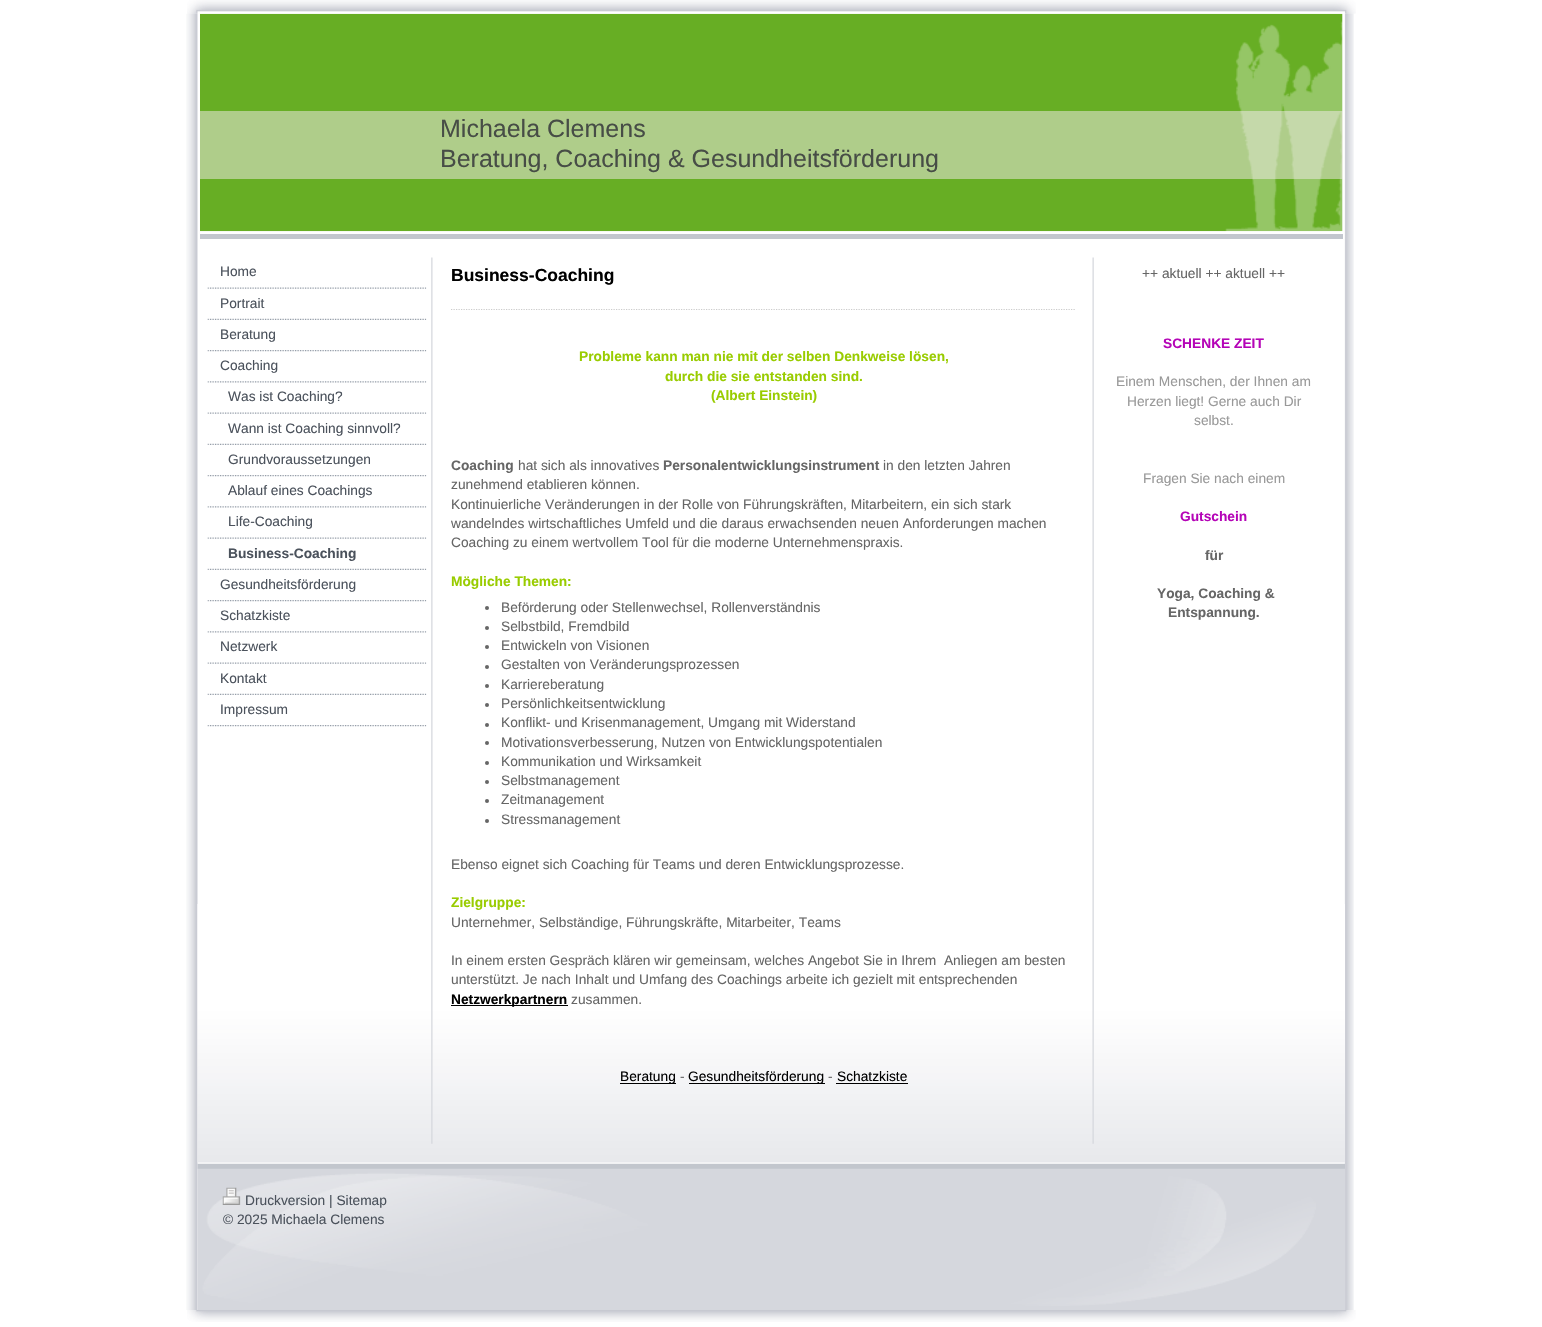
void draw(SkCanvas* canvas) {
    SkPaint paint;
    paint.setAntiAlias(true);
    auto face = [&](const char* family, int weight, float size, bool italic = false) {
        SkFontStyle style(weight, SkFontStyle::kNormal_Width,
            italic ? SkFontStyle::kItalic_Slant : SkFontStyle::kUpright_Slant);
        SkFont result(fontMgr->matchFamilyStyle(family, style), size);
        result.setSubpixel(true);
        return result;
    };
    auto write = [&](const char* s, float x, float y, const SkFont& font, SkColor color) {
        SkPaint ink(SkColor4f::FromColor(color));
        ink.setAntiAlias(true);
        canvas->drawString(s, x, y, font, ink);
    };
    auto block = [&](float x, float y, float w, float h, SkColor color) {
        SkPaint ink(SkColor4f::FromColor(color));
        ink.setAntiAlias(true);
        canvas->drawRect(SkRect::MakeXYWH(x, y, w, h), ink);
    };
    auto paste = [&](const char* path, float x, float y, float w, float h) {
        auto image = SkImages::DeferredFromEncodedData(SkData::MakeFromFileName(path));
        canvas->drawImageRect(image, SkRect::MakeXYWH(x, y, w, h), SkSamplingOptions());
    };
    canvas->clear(SK_ColorWHITE);
    paste("pic1.png", 187, 0, 1169, 14);
    paste("pic2.png", 186, 13, 1168, 1297);
    block(200, 234, 1143, 5, SkColorSetRGB(194, 198, 205));
    block(1342, 14, 1, 217, SkColorSetRGB(250, 250, 250));
    paste("pic3.png", 200, 13, 1143, 219);
    block(200, 111, 1143, 68, SkColorSetARGB(130, 243, 235, 235));
    auto kFont1 = face("Liberation Sans", 400, 25);
    write("Michaela Clemens", 440, 137, kFont1, SkColorSetRGB(71, 77, 70));
    write("Beratung, Coaching & Gesundheitsförderung", 440, 167, kFont1, SkColorSetRGB(71, 77, 70));
    paste("pic4.png", 197, 904, 1148, 259);
    paste("pic5.png", 431, 257, 663, 887);
    paste("pic6.png", 207, 287, 220, 2);
    auto kFont2 = face("Liberation Sans", 400, 13.75f);
    write("Home", 220, 276, kFont2, SkColorSetRGB(75, 82, 92));
    paste("pic7.png", 207, 318, 220, 2);
    write("Portrait", 220, 308, kFont2, SkColorSetRGB(75, 82, 92));
    paste("pic8.png", 207, 350, 220, 2);
    write("Beratung", 220, 339, kFont2, SkColorSetRGB(75, 82, 92));
    paste("pic9.png", 207, 381, 220, 2);
    write("Coaching", 220, 370, kFont2, SkColorSetRGB(75, 82, 92));
    paste("pic6.png", 207, 412, 220, 2);
    write("Was ist Coaching?", 228, 401, kFont2, SkColorSetRGB(75, 82, 92));
    paste("pic7.png", 207, 443, 220, 2);
    write("Wann ist Coaching sinnvoll?", 228, 433, kFont2, SkColorSetRGB(75, 82, 92));
    paste("pic8.png", 207, 475, 220, 2);
    write("Grundvoraussetzungen", 228, 464, kFont2, SkColorSetRGB(75, 82, 92));
    paste("pic9.png", 207, 506, 220, 2);
    write("Ablauf eines Coachings", 228, 495, kFont2, SkColorSetRGB(75, 82, 92));
    paste("pic6.png", 207, 537, 220, 2);
    write("Life-Coaching", 228, 526, kFont2, SkColorSetRGB(75, 82, 92));
    paste("pic7.png", 207, 568, 220, 2);
    auto kFont3 = face("Liberation Sans", 700, 13.75f);
    write("Business-Coaching", 228, 558, kFont3, SkColorSetRGB(75, 82, 92));
    paste("pic8.png", 207, 600, 220, 2);
    write("Gesundheitsförderung", 220, 589, kFont2, SkColorSetRGB(75, 82, 92));
    paste("pic9.png", 207, 631, 220, 2);
    write("Schatzkiste", 220, 620, kFont2, SkColorSetRGB(75, 82, 92));
    paste("pic6.png", 207, 662, 220, 2);
    write("Netzwerk", 220, 651, kFont2, SkColorSetRGB(75, 82, 92));
    paste("pic7.png", 207, 693, 220, 2);
    write("Kontakt", 220, 683, kFont2, SkColorSetRGB(75, 82, 92));
    paste("pic8.png", 207, 725, 220, 2);
    write("Impressum", 220, 714, kFont2, SkColorSetRGB(75, 82, 92));
    auto kFont4 = face("Liberation Sans", 700, 17.5f);
    write("Business-Coaching", 451, 281, kFont4, SK_ColorBLACK);
    paint.setStyle(SkPaint::kStroke_Style);
    paint.setStrokeWidth(1.2f);
    paint.setColor(SkColorSetRGB(204, 204, 204));
    paint.setPathEffect(SkDashPathEffect::Make({{1.25f, 1.25f}}, 0));
    canvas->drawPath(SkPathBuilder().moveTo(451, 309.5f).lineTo(1076, 309.5f).detach(), paint);
    paint.setPathEffect(nullptr);
    write("Probleme kann man nie mit der selben Denkweise lösen,", 579, 361, kFont3, SkColorSetRGB(153, 204, 0));
    write("durch die sie entstanden sind.", 665, 381, kFont3, SkColorSetRGB(153, 204, 0));
    write("(Albert Einstein)", 711, 400, kFont3, SkColorSetRGB(153, 204, 0));
    write("Coaching", 451, 470, kFont3, SkColorSetRGB(102, 102, 102));
    write("hat sich als innovatives", 518, 470, kFont2, SkColorSetRGB(102, 102, 102));
    write("Personalentwicklungsinstrument", 663, 470, kFont3, SkColorSetRGB(102, 102, 102));
    write("in den letzten Jahren", 883, 470, kFont2, SkColorSetRGB(102, 102, 102));
    write("zunehmend etablieren können.", 451, 489, kFont2, SkColorSetRGB(102, 102, 102));
    write("Kontinuierliche Veränderungen in der Rolle von Führungskräften, Mitarbeitern, ein sich stark", 451, 509, kFont2, SkColorSetRGB(102, 102, 102));
    write("wandelndes wirtschaftliches Umfeld und die daraus erwachsenden neuen Anforderungen machen", 451, 528, kFont2, SkColorSetRGB(102, 102, 102));
    write("Coaching zu einem wertvollem Tool für die moderne Unternehmenspraxis.", 451, 547, kFont2, SkColorSetRGB(102, 102, 102));
    write("Mögliche Themen:", 451, 586, kFont3, SkColorSetRGB(153, 204, 0));
    paint.setStyle(SkPaint::kFill_Style);
    paint.setColor(SkColorSetRGB(102, 102, 102));
    canvas->drawCircle(487, 608, 2, paint);
    write("Beförderung oder Stellenwechsel, Rollenverständnis", 501, 612, kFont2, SkColorSetRGB(102, 102, 102));
    canvas->drawCircle(487, 628, 2, paint);
    write("Selbstbild, Fremdbild", 501, 631, kFont2, SkColorSetRGB(102, 102, 102));
    canvas->drawCircle(487, 647, 2, paint);
    write("Entwickeln von Visionen", 501, 650, kFont2, SkColorSetRGB(102, 102, 102));
    canvas->drawCircle(487, 667, 2, paint);
    write("Gestalten von Veränderungsprozessen", 501, 669, kFont2, SkColorSetRGB(102, 102, 102));
    canvas->drawCircle(487, 686, 2, paint);
    write("Karriereberatung", 501, 689, kFont2, SkColorSetRGB(102, 102, 102));
    canvas->drawCircle(487, 705, 2, paint);
    write("Persönlichkeitsentwicklung", 501, 708, kFont2, SkColorSetRGB(102, 102, 102));
    canvas->drawCircle(487, 725, 2, paint);
    write("Konflikt- und Krisenmanagement, Umgang mit Widerstand", 501, 727, kFont2, SkColorSetRGB(102, 102, 102));
    canvas->drawCircle(487, 743, 2, paint);
    write("Motivationsverbesserung, Nutzen von Entwicklungspotentialen", 501, 747, kFont2, SkColorSetRGB(102, 102, 102));
    canvas->drawCircle(487, 763, 2, paint);
    write("Kommunikation und Wirksamkeit", 501, 766, kFont2, SkColorSetRGB(102, 102, 102));
    canvas->drawCircle(487, 782, 2, paint);
    write("Selbstmanagement", 501, 785, kFont2, SkColorSetRGB(102, 102, 102));
    canvas->drawCircle(487, 801, 2, paint);
    write("Zeitmanagement", 501, 804, kFont2, SkColorSetRGB(102, 102, 102));
    canvas->drawCircle(487, 821, 2, paint);
    write("Stressmanagement", 501, 824, kFont2, SkColorSetRGB(102, 102, 102));
    write("Ebenso eignet sich Coaching für Teams und deren Entwicklungsprozesse.", 451, 869, kFont2, SkColorSetRGB(102, 102, 102));
    write("Zielgruppe:", 451, 907, kFont3, SkColorSetRGB(153, 204, 0));
    write("Unternehmer, Selbständige, Führungskräfte, Mitarbeiter, Teams", 451, 927, kFont2, SkColorSetRGB(102, 102, 102));
    write("In einem ersten Gespräch klären wir gemeinsam, welches Angebot Sie in Ihrem  Anliegen am besten", 451, 965, kFont2, SkColorSetRGB(102, 102, 102));
    write("unterstützt. Je nach Inhalt und Umfang des Coachings arbeite ich gezielt mit entsprechenden", 451, 984, kFont2, SkColorSetRGB(102, 102, 102));
    block(451, 1005, 117, 1, SK_ColorBLACK);
    write("Netzwerkpartnern", 451, 1004, kFont3, SK_ColorBLACK);
    write("zusammen.", 571, 1004, kFont2, SkColorSetRGB(102, 102, 102));
    block(620, 1083, 56, 1, SK_ColorBLACK);
    write("Beratung", 620, 1081, kFont2, SK_ColorBLACK);
    write("-", 680, 1081, kFont2, SkColorSetRGB(102, 102, 102));
    block(689, 1083, 136, 1, SK_ColorBLACK);
    write("Gesundheitsförderung", 688, 1081, kFont2, SK_ColorBLACK);
    write("-", 828, 1081, kFont2, SkColorSetRGB(102, 102, 102));
    write("Schatzkiste", 837, 1081, kFont2, SK_ColorBLACK);
    block(836, 1083, 72, 1, SK_ColorBLACK);
    write("++ aktuell ++ aktuell ++", 1142, 278, kFont2, SkColorSetRGB(102, 102, 102));
    write("SCHENKE ZEIT", 1163, 348, kFont3, SkColorSetRGB(181, 4, 183));
    write("Einem Menschen, der Ihnen am", 1116, 386, kFont2, SkColorSetRGB(153, 153, 153));
    write("Herzen liegt! Gerne auch Dir", 1127, 406, kFont2, SkColorSetRGB(153, 153, 153));
    write("selbst.", 1194, 425, kFont2, SkColorSetRGB(153, 153, 153));
    write("Fragen Sie nach einem", 1143, 483, kFont2, SkColorSetRGB(153, 153, 153));
    write("Gutschein", 1180, 521, kFont3, SkColorSetRGB(181, 4, 183));
    write("für", 1205, 560, kFont3, SkColorSetRGB(102, 102, 102));
    write("Yoga, Coaching &", 1157, 598, kFont3, SkColorSetRGB(102, 102, 102));
    write("Entspannung.", 1168, 617, kFont3, SkColorSetRGB(102, 102, 102));
    paste("pic10.png", 197, 1163, 1148, 147);
    paste("pic11.png", 222, 1187, 19, 18);
    write("Druckversion | Sitemap", 245, 1205, kFont2, SkColorSetRGB(75, 82, 92));
    canvas->save();
    canvas->clipRect(SkRect::MakeXYWH(223, 1188, 1097, 42));
    write("© 2025 Michaela Clemens", 223, 1224, kFont2, SkColorSetRGB(75, 82, 92));
    canvas->restore();
    paste("pic12.png", 187, 1310, 1169, 12);
}
